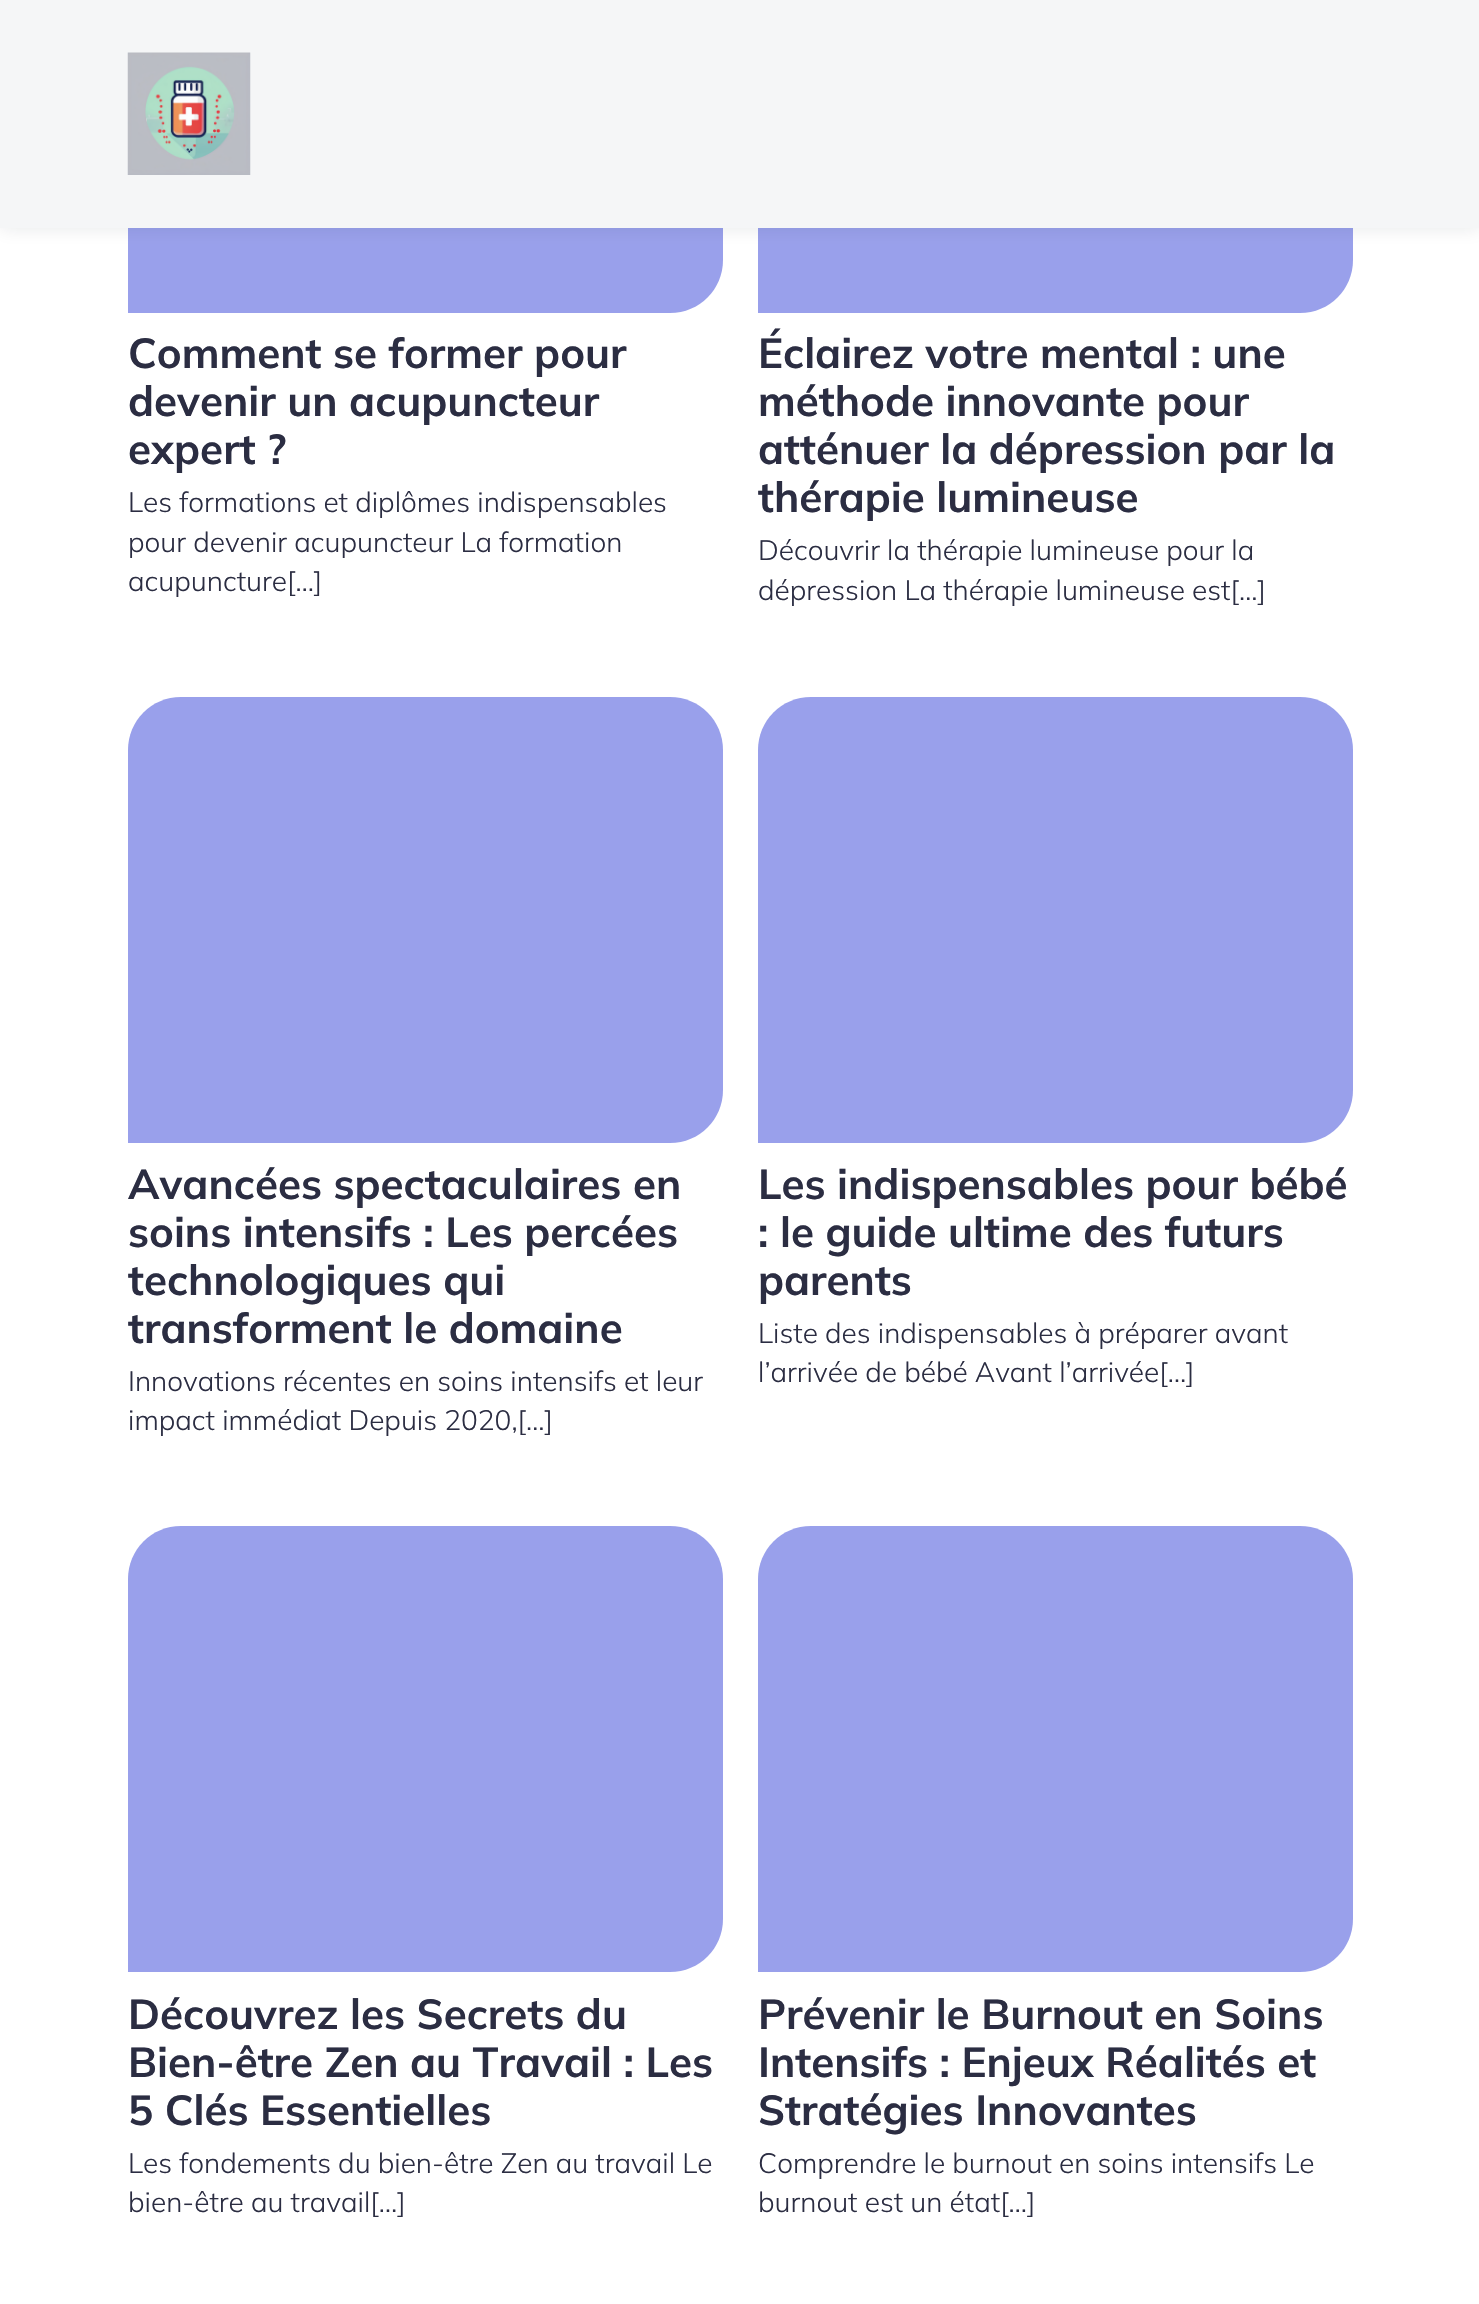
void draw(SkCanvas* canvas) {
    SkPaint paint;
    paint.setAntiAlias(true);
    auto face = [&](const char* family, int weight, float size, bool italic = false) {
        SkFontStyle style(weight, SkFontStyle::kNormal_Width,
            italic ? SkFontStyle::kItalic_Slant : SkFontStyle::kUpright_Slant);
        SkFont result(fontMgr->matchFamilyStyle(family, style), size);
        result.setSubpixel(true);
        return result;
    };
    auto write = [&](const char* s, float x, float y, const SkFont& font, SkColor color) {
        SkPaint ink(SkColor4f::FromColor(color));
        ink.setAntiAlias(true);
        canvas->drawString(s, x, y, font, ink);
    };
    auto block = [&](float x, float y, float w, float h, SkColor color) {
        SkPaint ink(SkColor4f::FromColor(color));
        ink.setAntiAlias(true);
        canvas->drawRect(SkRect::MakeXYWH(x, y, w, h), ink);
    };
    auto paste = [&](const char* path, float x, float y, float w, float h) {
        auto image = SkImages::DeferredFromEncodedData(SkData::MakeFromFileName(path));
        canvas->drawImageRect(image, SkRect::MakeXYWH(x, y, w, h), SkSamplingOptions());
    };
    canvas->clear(SK_ColorWHITE);
    paint.setColor(SkColorSetRGB(153, 160, 235));
    canvas->drawPath(SkPathBuilder().moveTo(181, -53).lineTo(670, -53).cubicTo(699.5f, -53, 723, -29.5f, 723, 0).lineTo(723, 260).cubicTo(723, 289.5f, 699.5f, 313, 670, 313).lineTo(128, 313).lineTo(128, 0).cubicTo(128, -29.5f, 151.5f, -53, 181, -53).close().detach(), paint);
    canvas->drawPath(SkPathBuilder().moveTo(811, -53).lineTo(1300, -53).cubicTo(1329.5f, -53, 1353, -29.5f, 1353, 0).lineTo(1353, 260).cubicTo(1353, 289.5f, 1329.5f, 313, 1300, 313).lineTo(758, 313).lineTo(758, 0).cubicTo(758, -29.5f, 781.5f, -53, 811, -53).close().detach(), paint);
    paint.setColor(SkColorSetARGB(26, 23, 25, 39));
    paint.setMaskFilter(SkMaskFilter::MakeBlur(kNormal_SkBlurStyle, 9));
    canvas->drawRect(SkRect::MakeXYWH(0, 0, 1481, 228), paint);
    paint.setMaskFilter(nullptr);
    block(0, 0, 1479, 228, SkColorSetRGB(245, 246, 247));
    paste("pic1.png", 127, 52, 124, 123);
    auto kFont1 = face("Mulish", 700, 42);
    write("Comment se former pour", 128, 368, kFont1, SkColorSetRGB(43, 45, 66));
    write("devenir un acupuncteur", 128, 416, kFont1, SkColorSetRGB(43, 45, 66));
    write("expert ?", 128, 464, kFont1, SkColorSetRGB(43, 45, 66));
    auto kFont2 = face("Mulish", 300, 28);
    write("Les formations et diplômes indispensables", 128, 512, kFont2, SkColorSetRGB(43, 45, 66));
    write("pour devenir acupuncteur La formation", 128, 552, kFont2, SkColorSetRGB(43, 45, 66));
    write("acupuncture[…]", 128, 591, kFont2, SkColorSetRGB(43, 45, 66));
    write("Éclairez votre mental : une", 758, 368, kFont1, SkColorSetRGB(43, 45, 66));
    write("méthode innovante pour", 758, 416, kFont1, SkColorSetRGB(43, 45, 66));
    write("atténuer la dépression par la", 758, 464, kFont1, SkColorSetRGB(43, 45, 66));
    write("thérapie lumineuse", 758, 512, kFont1, SkColorSetRGB(43, 45, 66));
    write("Découvrir la thérapie lumineuse pour la", 758, 560, kFont2, SkColorSetRGB(43, 45, 66));
    write("dépression La thérapie lumineuse est[…]", 758, 600, kFont2, SkColorSetRGB(43, 45, 66));
    paint.setColor(SkColorSetRGB(153, 160, 235));
    canvas->drawPath(SkPathBuilder().moveTo(181, 697).lineTo(670, 697).cubicTo(699.5f, 697, 723, 720.5f, 723, 750).lineTo(723, 1090).cubicTo(723, 1119.5f, 699.5f, 1143, 670, 1143).lineTo(128, 1143).lineTo(128, 750).cubicTo(128, 720.5f, 151.5f, 697, 181, 697).close().detach(), paint);
    write("Avancées spectaculaires en", 128, 1199, kFont1, SkColorSetRGB(43, 45, 66));
    write("soins intensifs : Les percées", 128, 1247, kFont1, SkColorSetRGB(43, 45, 66));
    write("technologiques qui", 128, 1295, kFont1, SkColorSetRGB(43, 45, 66));
    write("transforment le domaine", 128, 1343, kFont1, SkColorSetRGB(43, 45, 66));
    write("Innovations récentes en soins intensifs et leur", 128, 1391, kFont2, SkColorSetRGB(43, 45, 66));
    write("impact immédiat Depuis 2020,[…]", 128, 1430, kFont2, SkColorSetRGB(43, 45, 66));
    canvas->drawPath(SkPathBuilder().moveTo(811, 697).lineTo(1300, 697).cubicTo(1329.5f, 697, 1353, 720.5f, 1353, 750).lineTo(1353, 1090).cubicTo(1353, 1119.5f, 1329.5f, 1143, 1300, 1143).lineTo(758, 1143).lineTo(758, 750).cubicTo(758, 720.5f, 781.5f, 697, 811, 697).close().detach(), paint);
    write("Les indispensables pour bébé", 758, 1199, kFont1, SkColorSetRGB(43, 45, 66));
    write(": le guide ultime des futurs", 758, 1247, kFont1, SkColorSetRGB(43, 45, 66));
    write("parents", 758, 1295, kFont1, SkColorSetRGB(43, 45, 66));
    write("Liste des indispensables à préparer avant", 758, 1343, kFont2, SkColorSetRGB(43, 45, 66));
    write("l’arrivée de bébé Avant l’arrivée[…]", 758, 1382, kFont2, SkColorSetRGB(43, 45, 66));
    canvas->drawPath(SkPathBuilder().moveTo(181, 1526).lineTo(670, 1526).cubicTo(699.5f, 1526, 723, 1549.5f, 723, 1579).lineTo(723, 1919).cubicTo(723, 1948.5f, 699.5f, 1972, 670, 1972).lineTo(128, 1972).lineTo(128, 1579).cubicTo(128, 1549.5f, 151.5f, 1526, 181, 1526).close().detach(), paint);
    write("Découvrez les Secrets du", 128, 2029, kFont1, SkColorSetRGB(43, 45, 66));
    write("Bien-être Zen au Travail : Les", 128, 2077, kFont1, SkColorSetRGB(43, 45, 66));
    write("5 Clés Essentielles", 128, 2125, kFont1, SkColorSetRGB(43, 45, 66));
    write("Les fondements du bien-être Zen au travail Le", 128, 2173, kFont2, SkColorSetRGB(43, 45, 66));
    write("bien-être au travail[…]", 128, 2212, kFont2, SkColorSetRGB(43, 45, 66));
    canvas->drawPath(SkPathBuilder().moveTo(811, 1526).lineTo(1300, 1526).cubicTo(1329.5f, 1526, 1353, 1549.5f, 1353, 1579).lineTo(1353, 1919).cubicTo(1353, 1948.5f, 1329.5f, 1972, 1300, 1972).lineTo(758, 1972).lineTo(758, 1579).cubicTo(758, 1549.5f, 781.5f, 1526, 811, 1526).close().detach(), paint);
    write("Prévenir le Burnout en Soins", 758, 2029, kFont1, SkColorSetRGB(43, 45, 66));
    write("Intensifs : Enjeux Réalités et", 758, 2077, kFont1, SkColorSetRGB(43, 45, 66));
    write("Stratégies Innovantes", 758, 2125, kFont1, SkColorSetRGB(43, 45, 66));
    write("Comprendre le burnout en soins intensifs Le", 758, 2173, kFont2, SkColorSetRGB(43, 45, 66));
    write("burnout est un état[…]", 758, 2212, kFont2, SkColorSetRGB(43, 45, 66));
}
